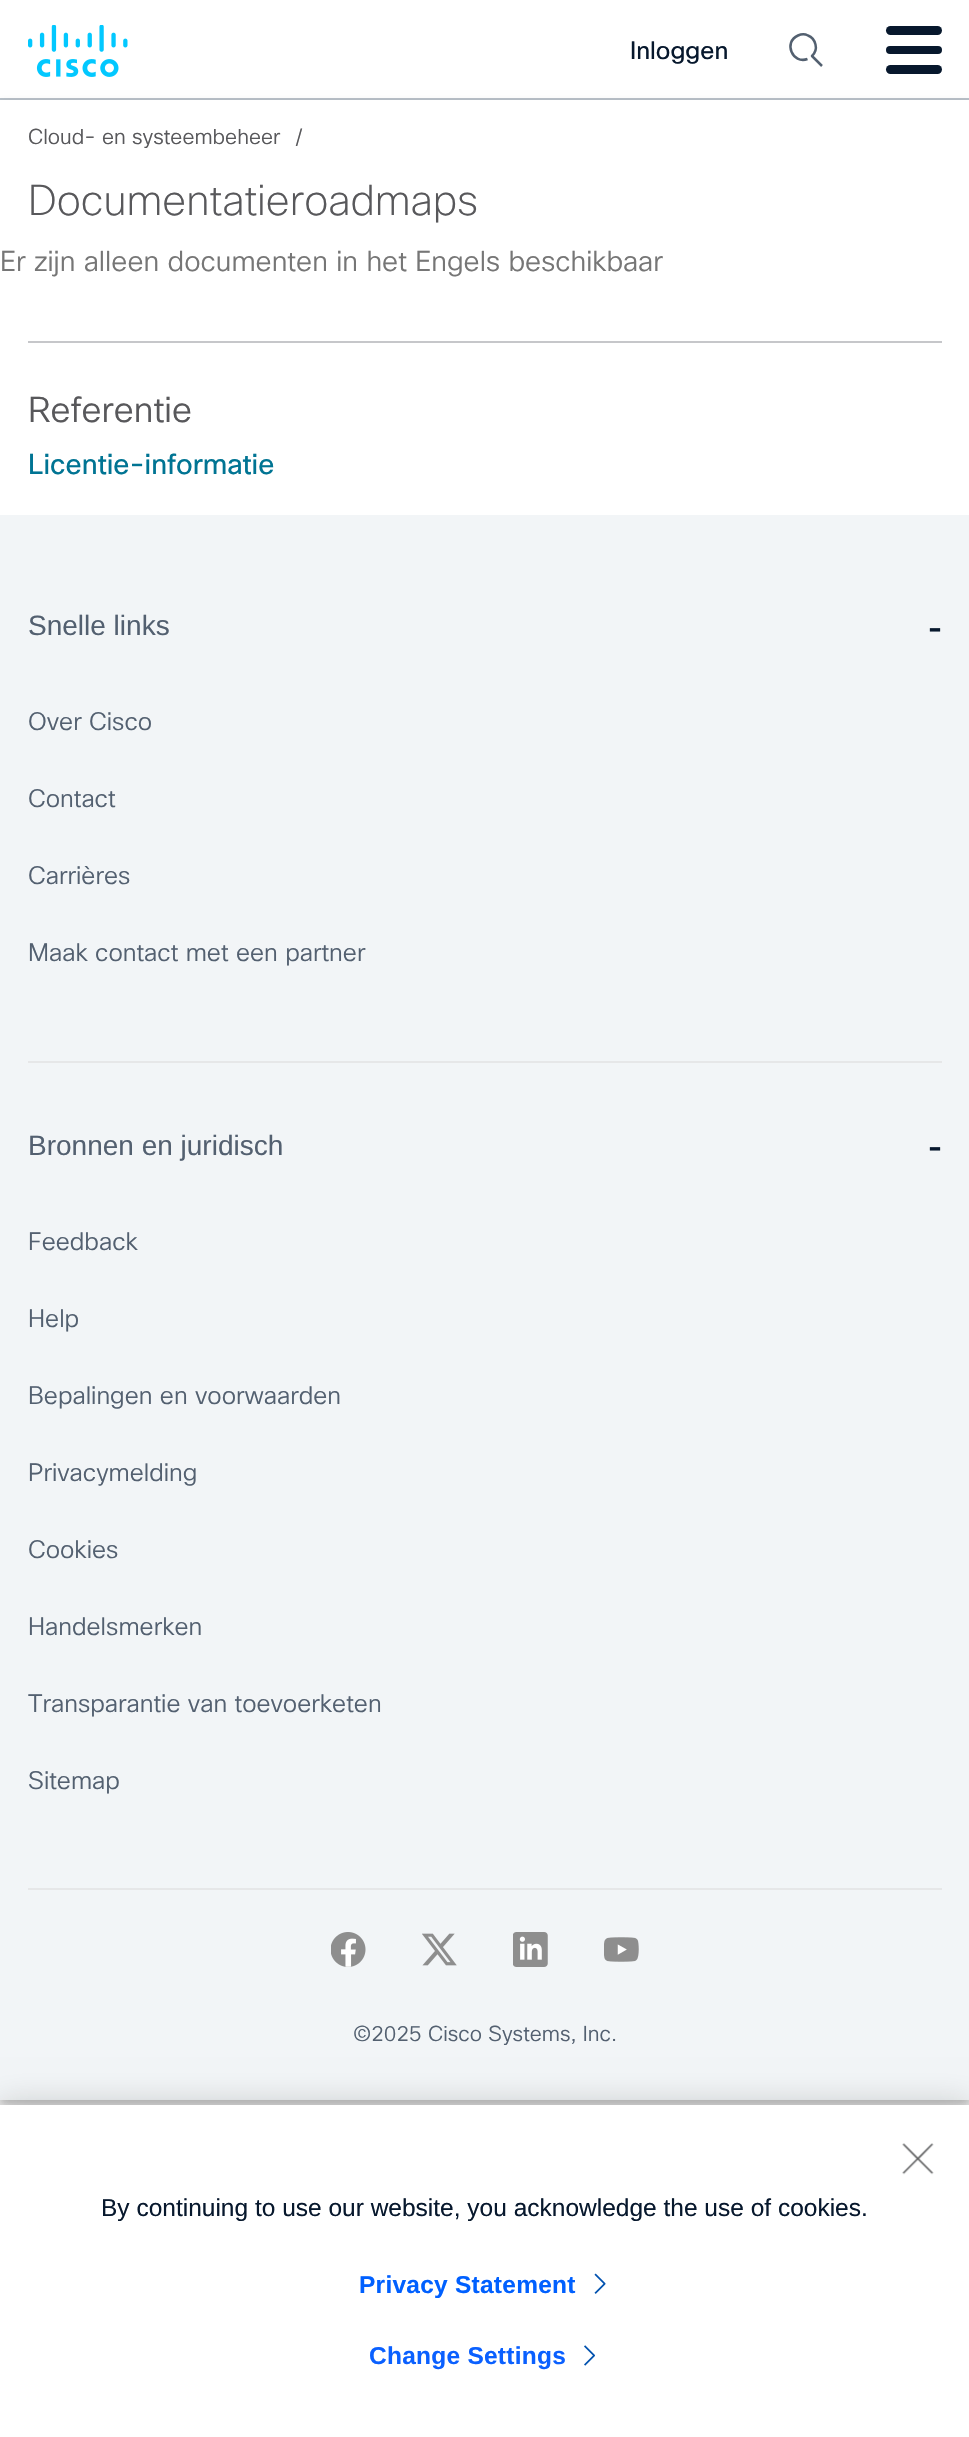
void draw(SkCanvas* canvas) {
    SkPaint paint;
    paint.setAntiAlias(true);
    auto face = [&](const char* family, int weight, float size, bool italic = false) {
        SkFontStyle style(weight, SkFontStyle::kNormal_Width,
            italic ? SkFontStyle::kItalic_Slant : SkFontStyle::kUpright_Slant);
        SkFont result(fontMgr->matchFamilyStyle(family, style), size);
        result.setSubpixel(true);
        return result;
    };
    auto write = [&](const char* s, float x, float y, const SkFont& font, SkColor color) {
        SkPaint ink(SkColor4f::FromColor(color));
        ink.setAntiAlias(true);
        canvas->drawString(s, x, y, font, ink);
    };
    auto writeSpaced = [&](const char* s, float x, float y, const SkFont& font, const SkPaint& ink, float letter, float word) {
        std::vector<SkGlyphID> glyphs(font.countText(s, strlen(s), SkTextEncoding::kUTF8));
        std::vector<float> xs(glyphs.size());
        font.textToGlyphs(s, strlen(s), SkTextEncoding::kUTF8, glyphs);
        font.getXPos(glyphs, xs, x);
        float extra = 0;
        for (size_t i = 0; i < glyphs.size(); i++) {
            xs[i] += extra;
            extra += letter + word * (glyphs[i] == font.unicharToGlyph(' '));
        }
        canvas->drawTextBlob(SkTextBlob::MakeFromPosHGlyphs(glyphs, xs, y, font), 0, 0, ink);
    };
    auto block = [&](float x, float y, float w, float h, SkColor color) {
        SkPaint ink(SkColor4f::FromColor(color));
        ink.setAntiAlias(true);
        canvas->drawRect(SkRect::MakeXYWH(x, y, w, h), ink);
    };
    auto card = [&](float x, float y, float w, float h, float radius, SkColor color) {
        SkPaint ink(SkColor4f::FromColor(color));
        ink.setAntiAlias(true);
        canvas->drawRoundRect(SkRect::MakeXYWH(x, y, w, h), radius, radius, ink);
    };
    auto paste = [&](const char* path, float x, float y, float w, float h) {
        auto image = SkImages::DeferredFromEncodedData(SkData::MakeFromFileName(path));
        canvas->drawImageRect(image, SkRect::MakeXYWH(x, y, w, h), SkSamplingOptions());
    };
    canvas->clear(SkColorSetRGB(242, 242, 242));
    block(0, 0, 969, 98, SK_ColorWHITE);
    block(0, 98, 969, 2, SkColorSetRGB(185, 193, 201));
    paste("pic1.png", 28, 25, 100, 52);
    auto kFont1 = face("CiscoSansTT", 400, 24.5f);
    write("Inloggen", 630, 59, kFont1, SkColorSetRGB(7, 24, 45));
    paint.setStyle(SkPaint::kStroke_Style);
    paint.setStrokeWidth(2.5f);
    paint.setStrokeJoin(SkPaint::kRound_Join);
    paint.setColor(SkColorSetRGB(83, 96, 112));
    canvas->drawPath(SkPathBuilder().moveTo(807.5f, 59).cubicTo(792.5f, 64.5f, 783, 42, 798, 35.5f).cubicTo(801.5f, 34, 805, 34, 808, 35.5f).cubicTo(812, 37, 814.5f, 40.5f, 815.5f, 44.5f).cubicTo(816.5f, 48.5f, 815, 53, 812, 56).lineTo(822, 66).detach(), paint);
    card(886, 26, 56, 9, 4.5f, SkColorSetRGB(7, 24, 45));
    card(886, 46, 56, 8, 4, SkColorSetRGB(7, 24, 45));
    card(886, 65, 56, 9, 4.5f, SkColorSetRGB(7, 24, 45));
    paint.setStyle(SkPaint::kFill_Style);
    paint.setColor(SkColorSetARGB(31, 0, 0, 0));
    paint.setMaskFilter(SkMaskFilter::MakeBlur(kNormal_SkBlurStyle, 4.5f));
    canvas->drawRect(SkRect::MakeXYWH(0, 103, 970, 2001), paint);
    paint.setMaskFilter(nullptr);
    block(0, 100, 969, 415, SK_ColorWHITE);
    auto kFont2 = face("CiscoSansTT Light", 300, 21);
    write("Cloud- en systeembeheer", 28, 144, kFont2, SkColorSetRGB(88, 88, 91));
    write("/", 295, 144, kFont2, SkColorSetRGB(88, 88, 91));
    auto kFont3 = face("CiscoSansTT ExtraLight", 200, 42);
    write("Documentatieroadmaps", 28, 215, kFont3, SkColorSetRGB(88, 88, 91));
    auto kFont4 = face("CiscoSansTT Light", 300, 28);
    write("Er zijn alleen documenten in het Engels beschikbaar", 0, 271, kFont4, SkColorSetRGB(118, 118, 118));
    block(28, 341, 914, 2, SkColorSetRGB(198, 199, 202));
    auto kFont5 = face("CiscoSansTT Light", 300, 35);
    write("Referentie", 28, 422, kFont5, SkColorSetRGB(88, 88, 91));
    auto kFont6 = face("CiscoSansTT", 400, 28);
    write("Licentie-informatie", 28, 474, kFont6, SkColorSetRGB(0, 116, 147));
    block(0, 515, 969, 1585, SkColorSetRGB(242, 245, 247));
    canvas->save();
    canvas->clipRect(SkRect::MakeXYWH(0, 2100, 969, 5));
    paint.setMaskFilter(SkMaskFilter::MakeBlur(kNormal_SkBlurStyle, 4.5f));
    canvas->drawRect(SkRect::MakeXYWH(0, 518, 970, 1586), paint);
    paint.setMaskFilter(nullptr);
    canvas->restore();
    auto kFont7 = face("Liberation Sans", 400, 28);
    write("Snelle links", 28, 635, kFont7, SkColorSetRGB(83, 96, 112));
    auto kFont8 = face("Liberation Sans", 400, 42);
    write("-", 928, 641, kFont8, SkColorSetRGB(7, 24, 45));
    auto kFont9 = face("CiscoSansTT Light", 300, 24.5f);
    write("Over Cisco", 28, 730, kFont9, SkColorSetRGB(83, 96, 112));
    write("Contact", 28, 807, kFont9, SkColorSetRGB(83, 96, 112));
    write("Carrières", 28, 884, kFont9, SkColorSetRGB(83, 96, 112));
    write("Maak contact met een partner", 28, 961, kFont9, SkColorSetRGB(83, 96, 112));
    block(28, 1061, 914, 2, SkColorSetRGB(230, 231, 232));
    write("Bronnen en juridisch", 28, 1155, kFont7, SkColorSetRGB(83, 96, 112));
    write("-", 928, 1160, kFont8, SkColorSetRGB(7, 24, 45));
    write("Feedback", 28, 1250, kFont9, SkColorSetRGB(83, 96, 112));
    write("Help", 28, 1327, kFont9, SkColorSetRGB(83, 96, 112));
    write("Bepalingen en voorwaarden", 28, 1404, kFont9, SkColorSetRGB(83, 96, 112));
    write("Privacymelding", 28, 1481, kFont9, SkColorSetRGB(83, 96, 112));
    write("Cookies", 28, 1558, kFont9, SkColorSetRGB(83, 96, 112));
    write("Handelsmerken", 28, 1635, kFont9, SkColorSetRGB(83, 96, 112));
    write("Transparantie van toevoerketen", 28, 1712, kFont9, SkColorSetRGB(83, 96, 112));
    write("Sitemap", 28, 1789, kFont9, SkColorSetRGB(83, 96, 112));
    block(28, 1888, 914, 2, SkColorSetRGB(230, 231, 232));
    paste("pic2.png", 331, 1932, 35, 35);
    paste("pic3.png", 422, 1933, 35, 33);
    paste("pic4.png", 513, 1932, 35, 35);
    paste("pic5.png", 604, 1937, 35, 25);
    write("©2025 Cisco Systems, Inc.", 353, 2041, kFont2, SkColorSetRGB(83, 96, 112));
    paint.setColor(SkColorSetARGB(51, 0, 0, 0));
    paint.setMaskFilter(SkMaskFilter::MakeBlur(kNormal_SkBlurStyle, 16));
    canvas->drawRect(SkRect::MakeXYWH(0, 2105, 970, 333), paint);
    paint.setMaskFilter(nullptr);
    block(0, 2105, 969, 332, SK_ColorWHITE);
    paste("pic6.png", 902, 2143, 32, 32);
    auto kFont10 = face("Liberation Sans", 400, 24.5f);
    write("By continuing to use our website, you acknowledge the use of cookies.", 101, 2216, kFont10, SkColorSetRGB(7, 24, 45));
    auto kFont11 = face("Liberation Sans", 700, 24.5f);
    paint.setColor(SkColorSetRGB(0, 96, 255));
    writeSpaced("Privacy Statement", 359, 2293, kFont11, paint, 0.25f, 0);
    paste("pic7.png", 594, 2273, 12, 21);
    paint.setColor(SkColorSetRGB(10, 96, 255));
    writeSpaced("Change Settings", 369, 2364, kFont11, paint, 0.25f, 0);
    paste("pic8.png", 584, 2345, 11, 21);
}
